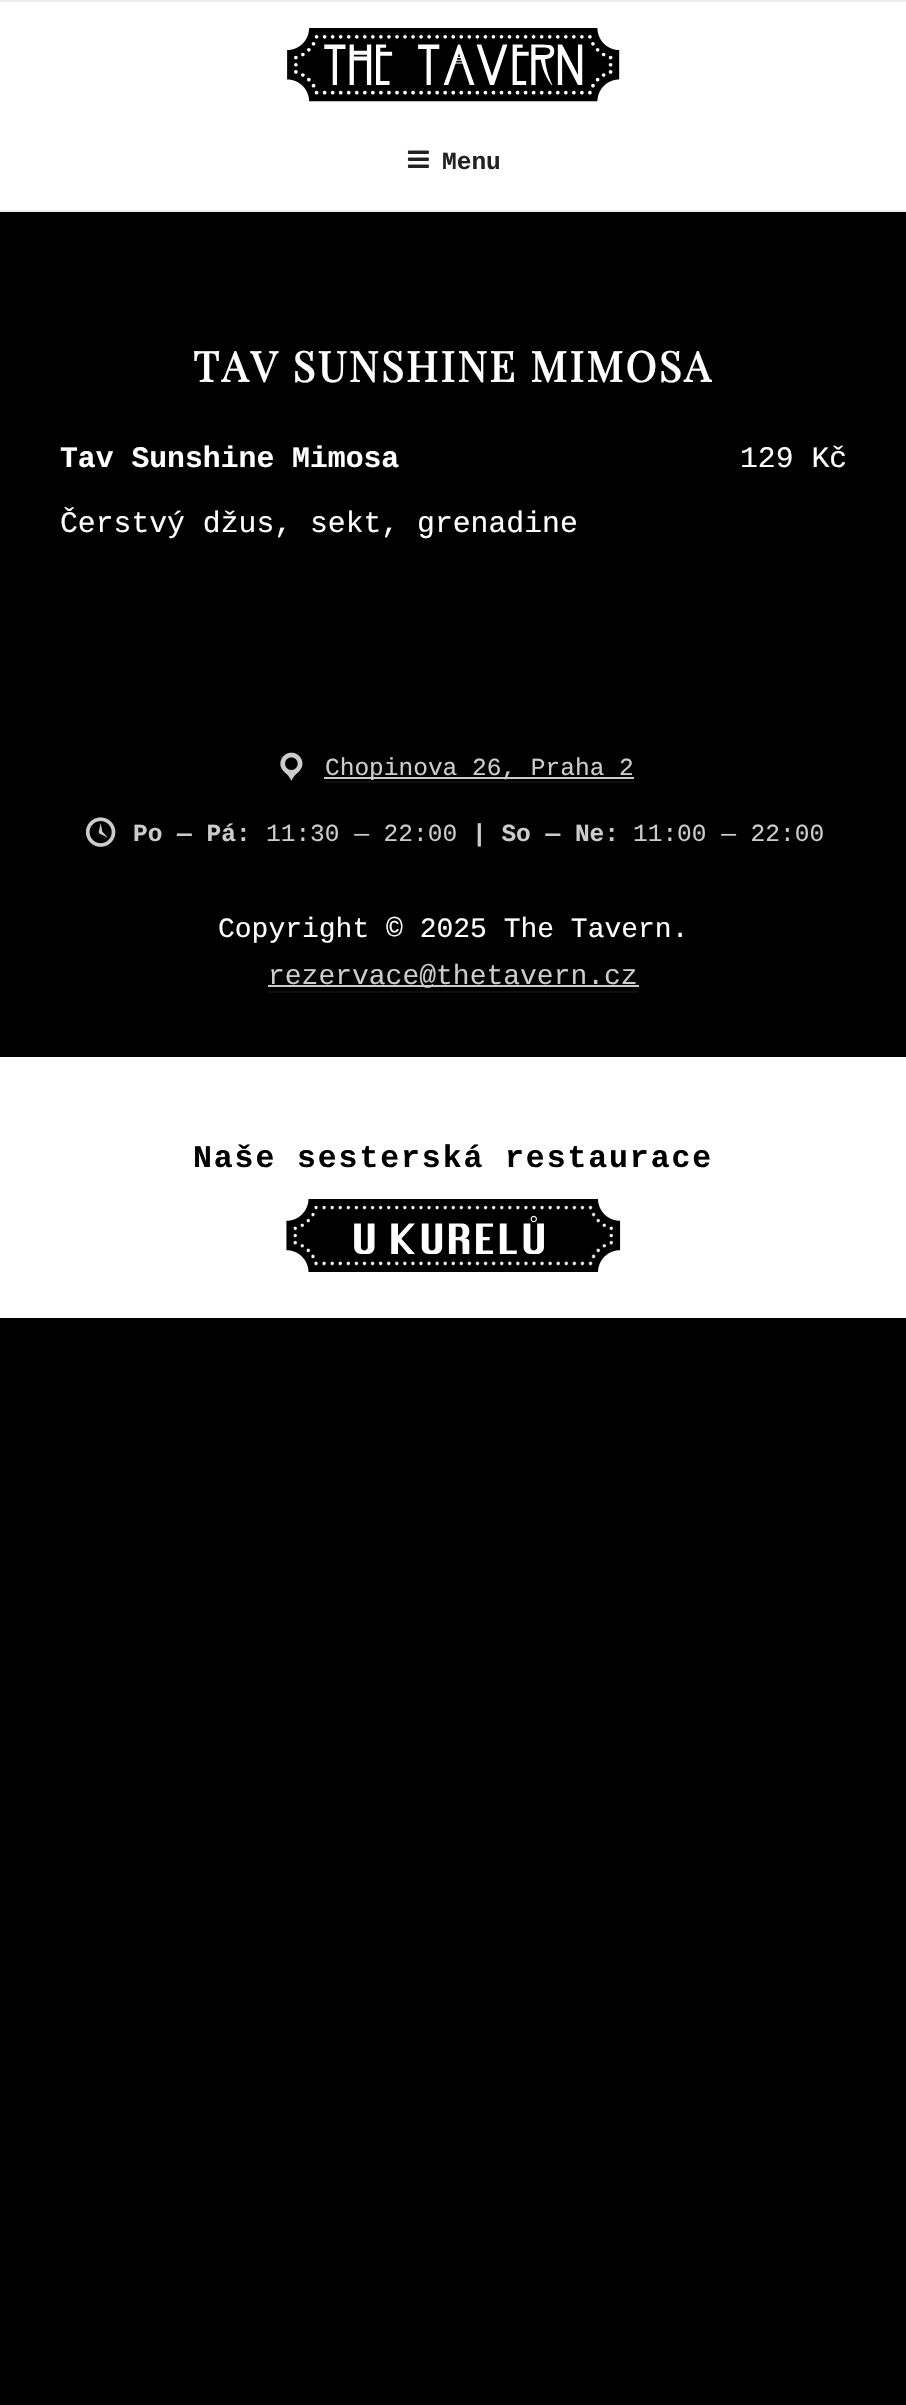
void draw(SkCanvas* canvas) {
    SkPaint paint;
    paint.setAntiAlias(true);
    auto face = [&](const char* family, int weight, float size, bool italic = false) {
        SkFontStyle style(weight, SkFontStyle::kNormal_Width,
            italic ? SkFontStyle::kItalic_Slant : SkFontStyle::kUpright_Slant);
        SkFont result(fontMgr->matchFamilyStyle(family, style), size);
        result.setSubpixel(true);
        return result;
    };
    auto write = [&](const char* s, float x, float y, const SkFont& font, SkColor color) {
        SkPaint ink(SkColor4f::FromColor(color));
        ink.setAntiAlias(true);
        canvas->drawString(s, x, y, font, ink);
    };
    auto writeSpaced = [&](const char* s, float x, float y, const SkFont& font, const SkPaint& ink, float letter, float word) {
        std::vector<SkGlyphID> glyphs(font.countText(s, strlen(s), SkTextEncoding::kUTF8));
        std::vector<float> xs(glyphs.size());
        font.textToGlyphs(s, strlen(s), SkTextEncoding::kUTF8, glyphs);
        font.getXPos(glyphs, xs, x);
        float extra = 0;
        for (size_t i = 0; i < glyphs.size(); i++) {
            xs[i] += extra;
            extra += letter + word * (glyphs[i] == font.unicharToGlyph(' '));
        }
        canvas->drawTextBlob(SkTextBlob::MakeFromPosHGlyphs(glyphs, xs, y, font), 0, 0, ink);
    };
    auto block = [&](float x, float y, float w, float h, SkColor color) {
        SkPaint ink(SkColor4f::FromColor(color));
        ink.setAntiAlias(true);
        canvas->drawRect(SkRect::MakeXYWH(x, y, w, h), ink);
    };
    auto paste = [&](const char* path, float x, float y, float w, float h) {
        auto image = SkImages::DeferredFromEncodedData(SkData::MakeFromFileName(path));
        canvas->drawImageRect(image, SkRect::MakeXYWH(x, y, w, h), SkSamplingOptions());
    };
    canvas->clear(SK_ColorBLACK);
    block(0, 2, 906, 208, SK_ColorWHITE);
    block(0, 0, 906, 2, SkColorSetRGB(238, 238, 238));
    block(0, 210, 906, 2, SkColorSetRGB(238, 238, 238));
    paste("pic1.png", 287, 28, 333, 74);
    paste("pic2.png", 407, 150, 22, 18);
    auto kFont1 = face("Liberation Mono", 700, 24.5f);
    write("Menu", 442, 169, kFont1, SkColorSetRGB(34, 34, 34));
    auto kFont2 = face("Playfair Display", 700, 42);
    paint.setColor(SK_ColorWHITE);
    writeSpaced("TAV SUNSHINE MIMOSA", 193, 382, kFont2, paint, 2.5f, 0);
    auto kFont3 = face("Liberation Mono", 700, 29.75f);
    write("Tav Sunshine Mimosa", 60, 467, kFont3, SK_ColorWHITE);
    auto kFont4 = face("Liberation Mono", 400, 29.75f);
    write("129 Kč", 740, 467, kFont4, SK_ColorWHITE);
    write("Čerstvý džus, sekt, grenadine", 60, 532, kFont4, SK_ColorWHITE);
    paste("pic3.png", 280, 752, 23, 29);
    block(324, 777, 310, 2, SkColorSetRGB(204, 204, 204));
    auto kFont5 = face("Liberation Mono", 400, 24.5f);
    write("Chopinova 26, Praha 2", 325, 775, kFont5, SkColorSetRGB(204, 204, 204));
    block(324, 781, 310, 2, SkColorSetRGB(15, 15, 15));
    paste("pic4.png", 85, 817, 31, 30);
    write("Po — Pá:", 133, 841, kFont1, SkColorSetRGB(204, 204, 204));
    write("11:30 — 22:00", 266, 841, kFont5, SkColorSetRGB(204, 204, 204));
    write("| So — Ne:", 472, 841, kFont1, SkColorSetRGB(204, 204, 204));
    write("11:00 — 22:00", 633, 841, kFont5, SkColorSetRGB(204, 204, 204));
    auto kFont6 = face("Liberation Mono", 400, 28);
    write("Copyright © 2025 The Tavern.", 218, 937, kFont6, SK_ColorWHITE);
    block(268, 985, 371, 2, SkColorSetRGB(204, 204, 204));
    write("rezervace@thetavern.cz", 268, 984, kFont6, SkColorSetRGB(204, 204, 204));
    block(268, 991, 371, 2, SkColorSetRGB(15, 15, 15));
    block(0, 1057, 906, 261, SK_ColorWHITE);
    auto kFont7 = face("Liberation Mono", 700, 31.5f);
    paint.setColor(SK_ColorBLACK);
    writeSpaced("Naše sesterská restaurace", 193, 1167, kFont7, paint, 1.9f, 0);
    paste("pic5.png", 286, 1199, 335, 73);
}
